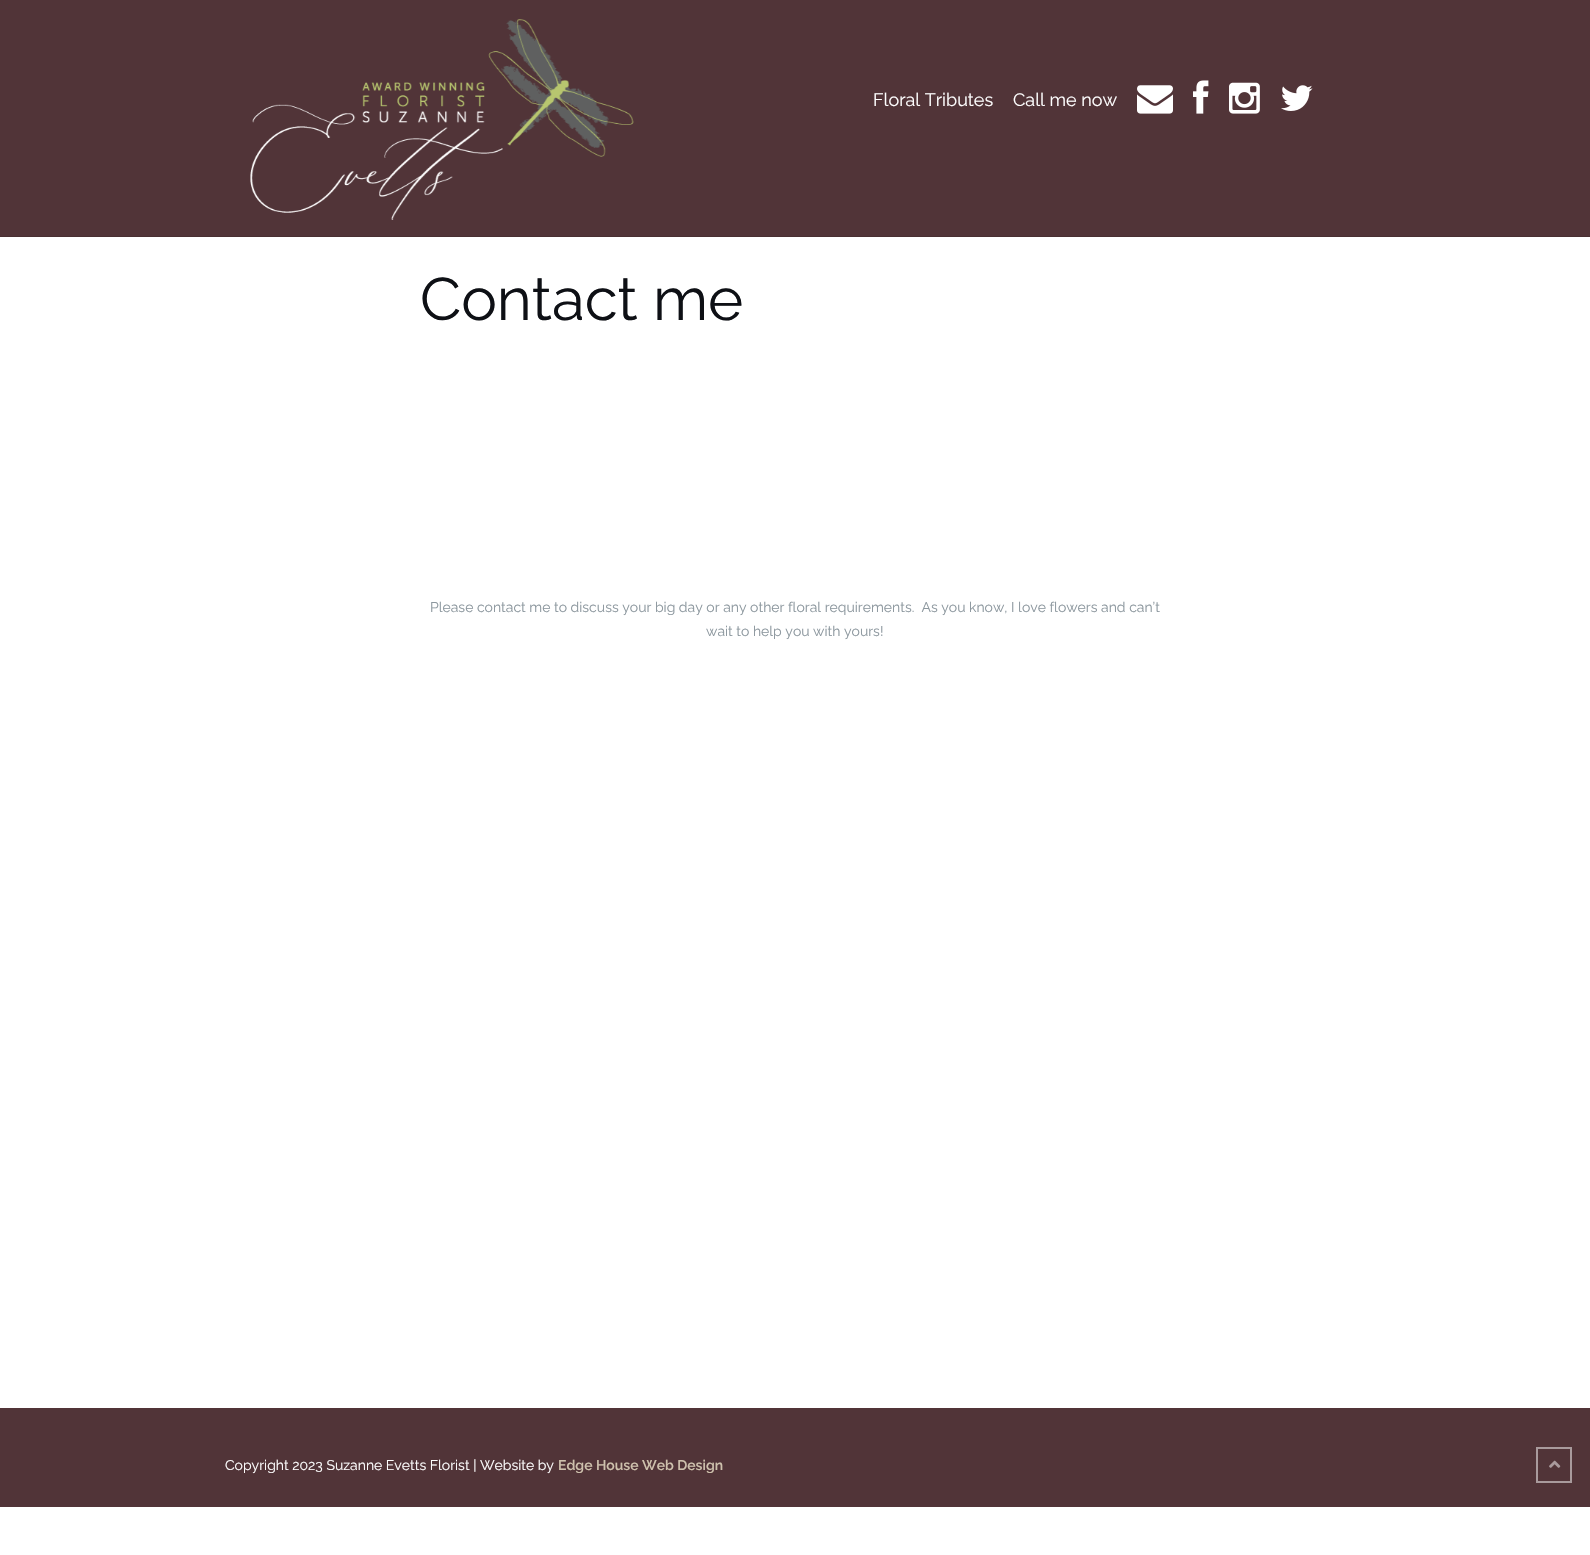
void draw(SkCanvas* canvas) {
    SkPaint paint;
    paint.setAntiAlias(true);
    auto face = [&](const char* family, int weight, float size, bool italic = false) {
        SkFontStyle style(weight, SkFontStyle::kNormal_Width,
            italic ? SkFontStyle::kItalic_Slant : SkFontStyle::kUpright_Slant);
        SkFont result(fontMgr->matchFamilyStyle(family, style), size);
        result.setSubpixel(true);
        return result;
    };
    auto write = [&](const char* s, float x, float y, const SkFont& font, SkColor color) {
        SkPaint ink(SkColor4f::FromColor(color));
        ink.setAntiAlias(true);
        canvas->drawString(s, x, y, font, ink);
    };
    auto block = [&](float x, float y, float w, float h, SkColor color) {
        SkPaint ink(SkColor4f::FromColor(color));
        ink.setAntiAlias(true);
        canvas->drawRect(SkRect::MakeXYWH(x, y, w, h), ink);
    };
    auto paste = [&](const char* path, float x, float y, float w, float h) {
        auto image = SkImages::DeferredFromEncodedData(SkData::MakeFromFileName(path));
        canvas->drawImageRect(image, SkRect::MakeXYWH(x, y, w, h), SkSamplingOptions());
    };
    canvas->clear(SK_ColorWHITE);
    block(0, 0, 1590, 236, SkColorSetRGB(81, 52, 56));
    block(0, 236, 1590, 1, SkColorSetRGB(73, 47, 50));
    paste("pic1.png", 250, 19, 384, 201);
    auto kFont1 = face("Raleway", 400, 18);
    write("Floral Tributes", 873, 106, kFont1, SK_ColorWHITE);
    write("Call me now", 1013, 106, kFont1, SK_ColorWHITE);
    paste("pic2.png", 1137, 85, 36, 29);
    paste("pic3.png", 1193, 80, 16, 34);
    paste("pic4.png", 1229, 82, 31, 32);
    paste("pic5.png", 1281, 85, 32, 26);
    auto kFont2 = face("Raleway", 400, 60);
    write("Contact me", 420, 320, kFont2, SkColorSetRGB(14, 16, 21));
    auto kFont3 = face("Raleway", 400, 14);
    write("Please contact me to discuss your big day or any other floral requirements.  As you know, I love flowers and can’t", 430, 612, kFont3, SkColorSetRGB(140, 151, 158));
    write("wait to help you with yours!", 706, 636, kFont3, SkColorSetRGB(140, 151, 158));
    block(0, 1408, 1590, 99, SkColorSetRGB(81, 52, 56));
    write("Copyright 2023 Suzanne Evetts Florist | Website by", 225, 1470, kFont3, SK_ColorWHITE);
    auto kFont4 = face("Raleway", 600, 14);
    write("Edge House Web Design", 558, 1470, kFont4, SkColorSetRGB(206, 193, 173));
    paint.setStyle(SkPaint::kStroke_Style);
    paint.setStrokeWidth(2);
    paint.setColor(SkColorSetRGB(168, 154, 156));
    canvas->drawRect(SkRect::MakeXYWH(1537, 1448, 34, 34), paint);
    paste("pic6.png", 1549, 1460, 12, 8);
}
